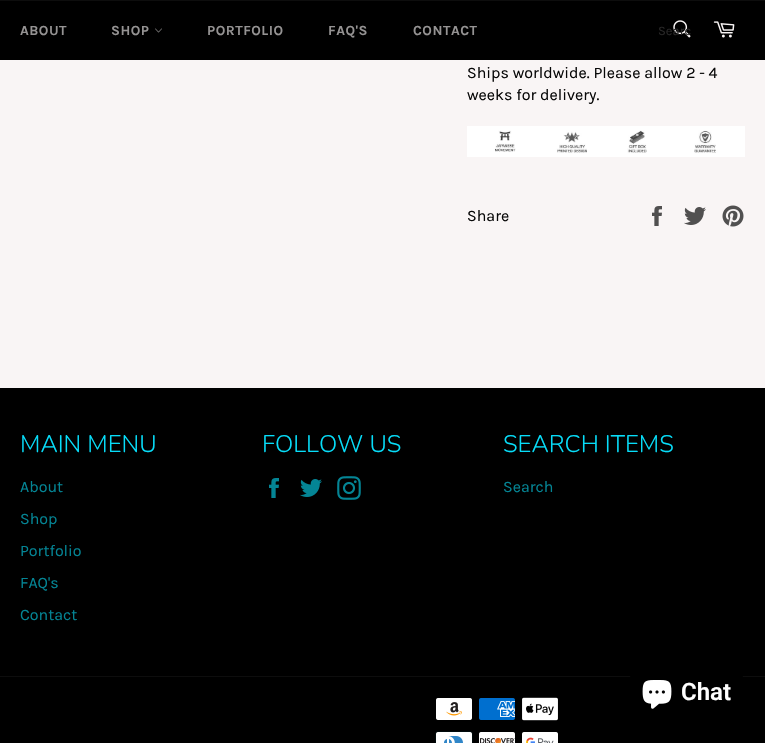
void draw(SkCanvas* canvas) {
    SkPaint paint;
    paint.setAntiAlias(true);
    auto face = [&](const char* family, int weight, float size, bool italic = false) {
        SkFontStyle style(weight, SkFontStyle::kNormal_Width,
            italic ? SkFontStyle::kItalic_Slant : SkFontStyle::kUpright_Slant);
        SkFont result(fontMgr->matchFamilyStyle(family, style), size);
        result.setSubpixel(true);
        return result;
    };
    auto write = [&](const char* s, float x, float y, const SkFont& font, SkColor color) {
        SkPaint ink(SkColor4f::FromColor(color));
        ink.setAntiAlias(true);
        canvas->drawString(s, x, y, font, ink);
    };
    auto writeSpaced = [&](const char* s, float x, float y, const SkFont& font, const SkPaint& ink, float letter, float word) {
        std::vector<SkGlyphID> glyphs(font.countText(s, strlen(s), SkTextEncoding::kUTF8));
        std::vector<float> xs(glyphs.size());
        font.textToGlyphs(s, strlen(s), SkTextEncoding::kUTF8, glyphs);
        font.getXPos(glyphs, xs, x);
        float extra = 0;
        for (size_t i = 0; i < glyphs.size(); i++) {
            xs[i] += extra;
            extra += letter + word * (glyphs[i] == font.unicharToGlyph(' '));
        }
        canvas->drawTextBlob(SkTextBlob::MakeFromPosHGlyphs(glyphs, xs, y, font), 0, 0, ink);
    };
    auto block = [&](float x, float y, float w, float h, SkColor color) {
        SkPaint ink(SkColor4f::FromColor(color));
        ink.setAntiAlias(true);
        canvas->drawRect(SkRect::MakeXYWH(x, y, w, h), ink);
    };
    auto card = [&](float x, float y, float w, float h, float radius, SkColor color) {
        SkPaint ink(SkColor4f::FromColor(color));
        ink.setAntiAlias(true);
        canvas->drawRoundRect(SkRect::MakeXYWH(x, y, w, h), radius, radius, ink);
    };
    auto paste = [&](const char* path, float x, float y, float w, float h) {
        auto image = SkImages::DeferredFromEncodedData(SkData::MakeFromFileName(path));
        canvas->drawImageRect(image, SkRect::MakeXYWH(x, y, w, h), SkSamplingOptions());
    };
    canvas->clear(SkColorSetRGB(249, 245, 245));
    block(0, 1, 765, 59, SK_ColorBLACK);
    block(0, 0, 765, 1, SkColorSetRGB(13, 13, 13));
    auto kFont1 = face("Karla", 700, 14);
    paint.setColor(SkColorSetRGB(149, 147, 147));
    writeSpaced("ABOUT", 20, 35, kFont1, paint, 0.5f, 0);
    writeSpaced("SHOP", 111, 35, kFont1, paint, 0.5f, 0);
    paste("pic1.png", 155, 28, 7, 5);
    writeSpaced("PORTFOLIO", 207, 35, kFont1, paint, 0.5f, 0);
    writeSpaced("FAQ'S", 328, 35, kFont1, paint, 0.5f, 0);
    writeSpaced("CONTACT", 413, 35, kFont1, paint, 0.5f, 0);
    paste("pic2.png", 673, 20, 18, 18);
    auto kFont2 = face("Karla", 400, 13);
    write("Searc", 658, 35, kFont2, SkColorSetRGB(40, 39, 39));
    paste("pic3.png", 713, 21, 22, 17);
    auto kFont3 = face("Karla", 400, 16);
    write("Ships worldwide. Please allow 2 - 4", 467, 78, kFont3, SkColorSetRGB(8, 8, 8));
    write("weeks for delivery.", 467, 100, kFont3, SkColorSetRGB(8, 8, 8));
    paste("pic4.png", 467, 126, 278, 31);
    write("Share", 467, 221, kFont3, SkColorSetRGB(8, 8, 8));
    paste("pic5.png", 652, 206, 10, 20);
    paste("pic6.png", 684, 207, 22, 18);
    paste("pic7.png", 722, 205, 22, 22);
    block(0, 388, 765, 355, SK_ColorBLACK);
    auto kFont4 = face("Nunito", 300, 24);
    write("MAIN MENU", 20, 452, kFont4, SkColorSetRGB(7, 221, 249));
    write("About", 20, 492, kFont3, SkColorSetRGB(4, 133, 149));
    write("Shop", 20, 524, kFont3, SkColorSetRGB(4, 133, 149));
    write("Portfolio", 20, 556, kFont3, SkColorSetRGB(4, 133, 149));
    write("FAQ's", 20, 588, kFont3, SkColorSetRGB(4, 133, 149));
    write("Contact", 20, 620, kFont3, SkColorSetRGB(4, 133, 149));
    write("FOLLOW US", 262, 452, kFont4, SkColorSetRGB(7, 221, 249));
    paste("pic8.png", 269, 478, 10, 20);
    paste("pic9.png", 300, 479, 22, 18);
    paste("pic10.png", 337, 476, 24, 24);
    write("SEARCH ITEMS", 503, 452, kFont4, SkColorSetRGB(7, 221, 249));
    write("Search", 503, 492, kFont3, SkColorSetRGB(4, 133, 149));
    block(0, 676, 765, 1, SkColorSetRGB(13, 13, 13));
    paste("pic11.png", 436, 698, 36, 22);
    paste("pic12.png", 479, 698, 36, 22);
    paste("pic13.png", 522, 697, 36, 24);
    paste("pic14.png", 435, 731, 38, 12);
    paste("pic15.png", 479, 732, 36, 11);
    paste("pic16.png", 522, 732, 36, 11);
    card(630, 662, 113, 60, 16, SK_ColorBLACK);
    paste("pic17.png", 642, 680, 30, 29);
    auto kFont5 = face("Roboto", 600, 24);
    write("Chat", 681, 700, kFont5, SK_ColorWHITE);
}
